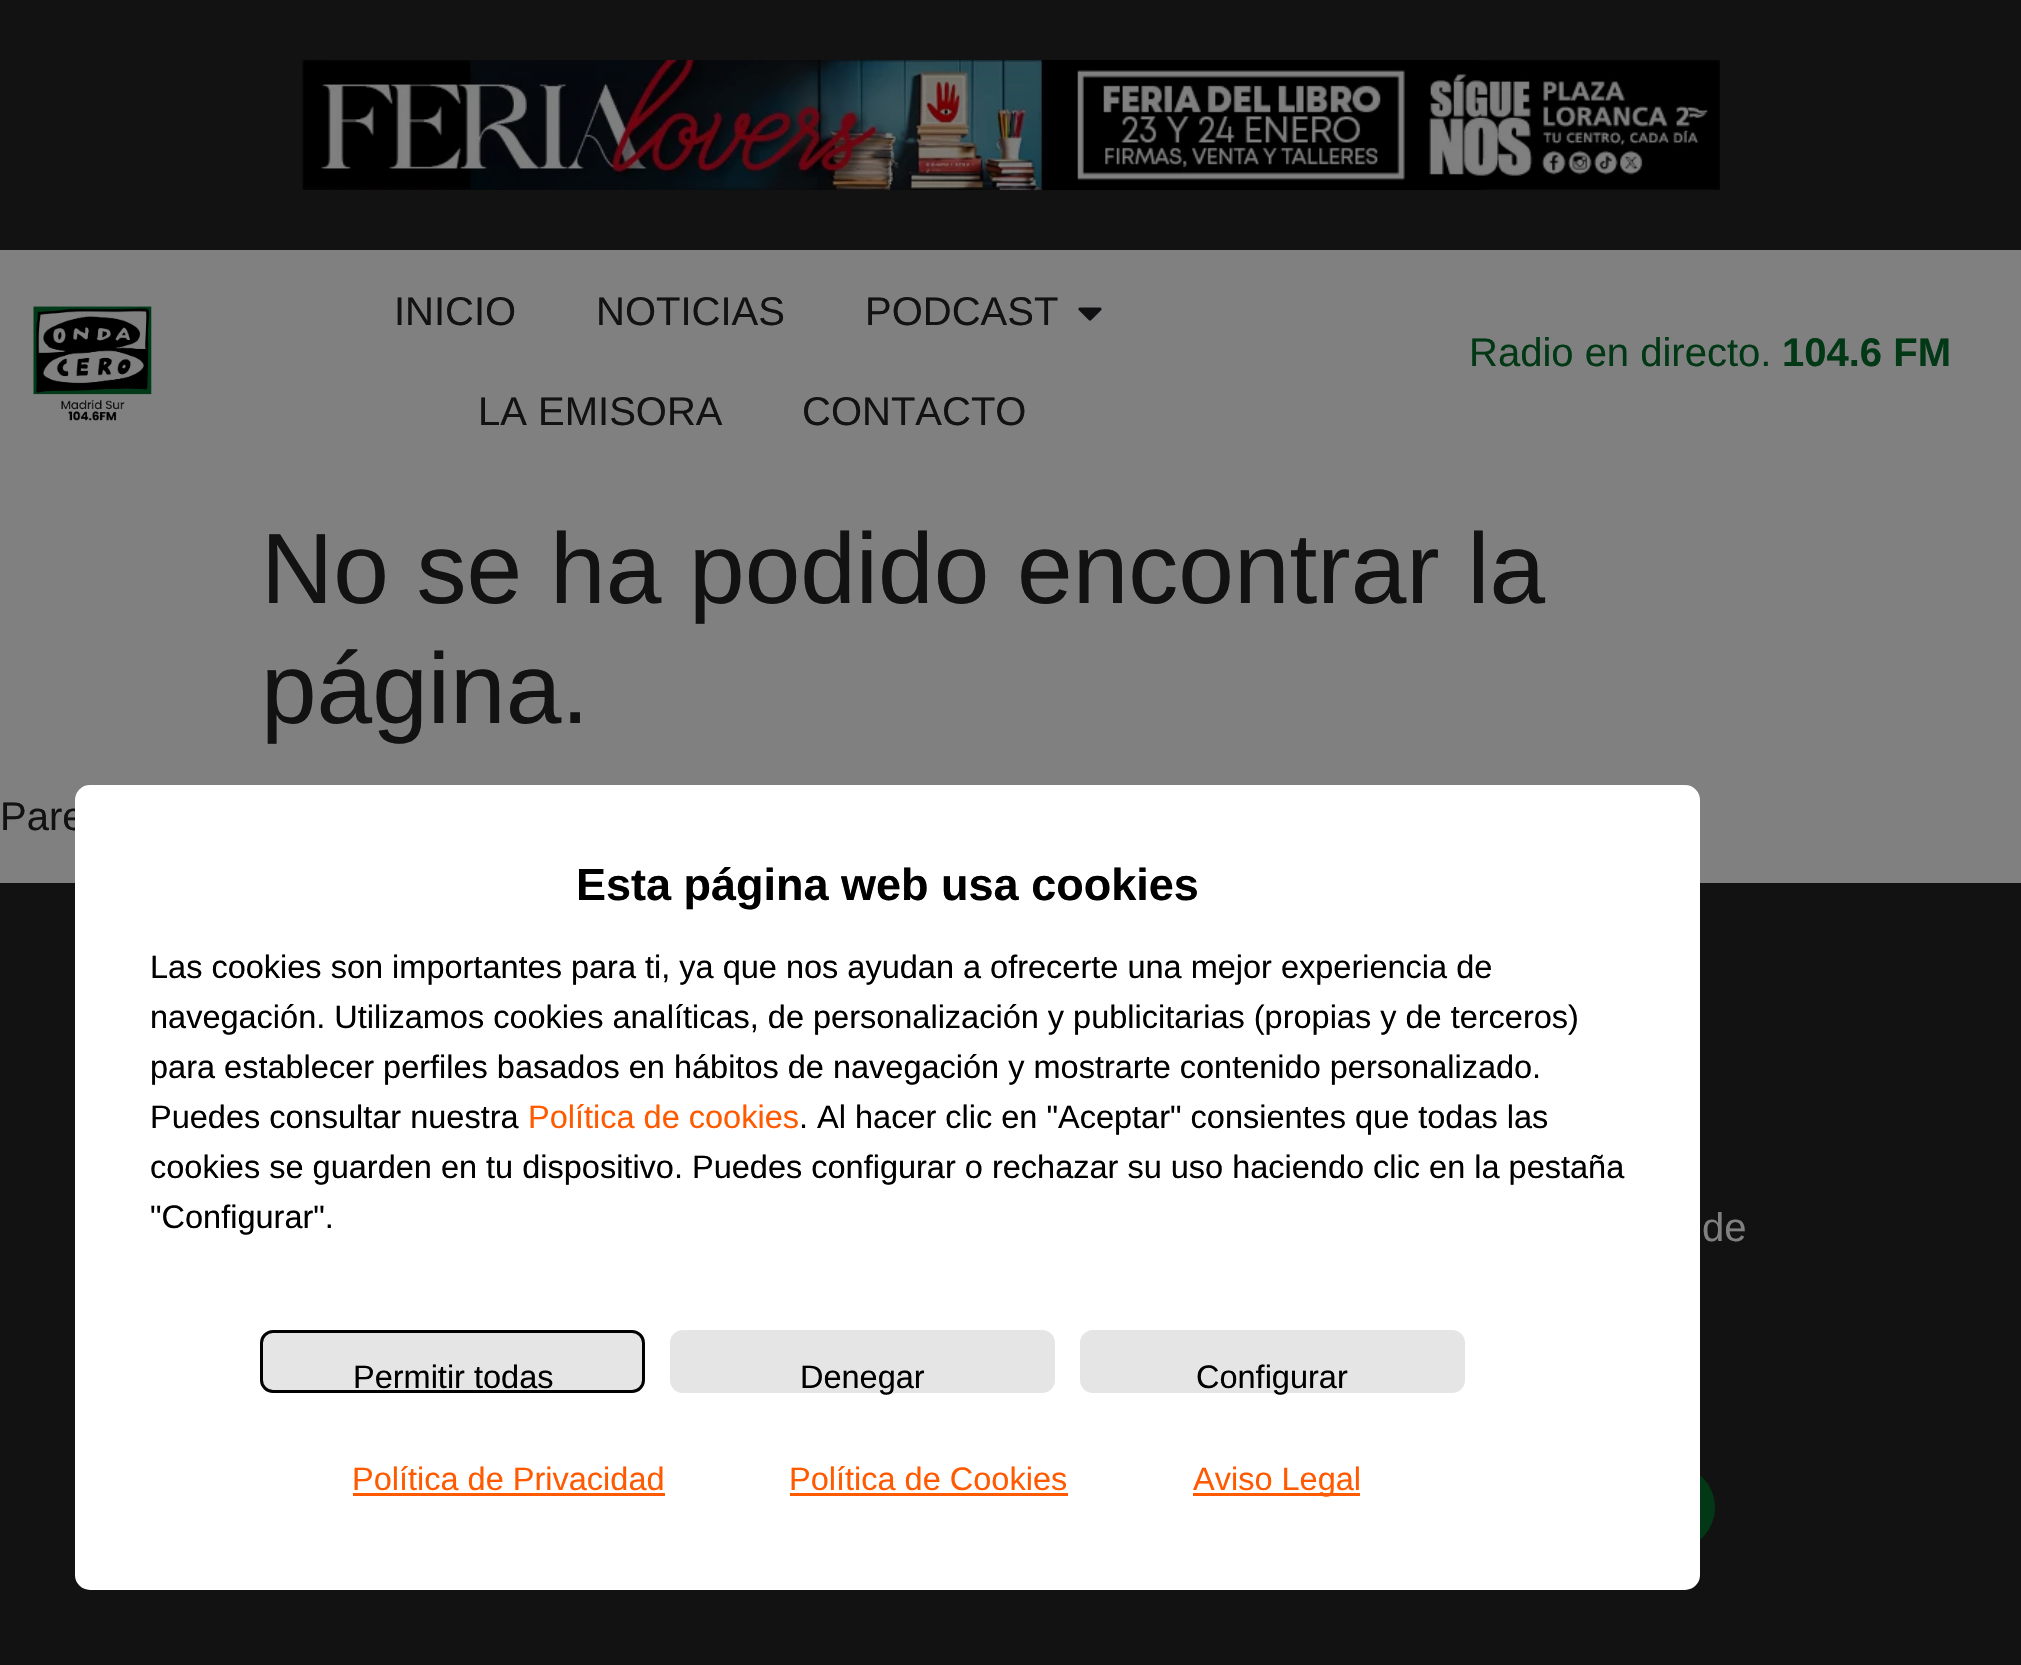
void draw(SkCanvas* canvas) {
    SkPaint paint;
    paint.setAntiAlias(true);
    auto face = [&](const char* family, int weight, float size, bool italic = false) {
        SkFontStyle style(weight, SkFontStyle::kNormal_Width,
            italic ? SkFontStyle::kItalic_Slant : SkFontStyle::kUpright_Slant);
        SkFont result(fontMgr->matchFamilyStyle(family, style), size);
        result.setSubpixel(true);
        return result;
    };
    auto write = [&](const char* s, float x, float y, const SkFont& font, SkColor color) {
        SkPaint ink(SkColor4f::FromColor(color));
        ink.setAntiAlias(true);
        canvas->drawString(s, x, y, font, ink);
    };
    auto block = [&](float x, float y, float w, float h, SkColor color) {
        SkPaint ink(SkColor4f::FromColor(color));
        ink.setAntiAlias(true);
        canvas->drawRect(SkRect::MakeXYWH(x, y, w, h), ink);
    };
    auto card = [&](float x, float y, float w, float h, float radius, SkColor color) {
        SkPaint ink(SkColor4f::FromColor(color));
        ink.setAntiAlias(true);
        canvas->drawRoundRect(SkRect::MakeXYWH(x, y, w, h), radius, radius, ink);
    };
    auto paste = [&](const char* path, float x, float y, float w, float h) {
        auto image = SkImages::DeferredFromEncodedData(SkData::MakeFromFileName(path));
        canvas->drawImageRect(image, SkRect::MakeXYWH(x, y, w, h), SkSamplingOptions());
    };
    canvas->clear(SkColorSetRGB(128, 128, 128));
    block(0, 0, 2021, 250, SkColorSetRGB(18, 18, 18));
    paste("pic1.png", 302, 60, 1418, 130);
    paste("pic2.png", 33, 306, 119, 115);
    auto kFont1 = face("Liberation Sans", 400, 40);
    write("INICIO", 394, 325, kFont1, SkColorSetRGB(18, 18, 18));
    write("NOTICIAS", 596, 325, kFont1, SkColorSetRGB(18, 18, 18));
    write("PODCAST", 865, 325, kFont1, SkColorSetRGB(18, 18, 18));
    paste("pic3.png", 1078, 307, 24, 14);
    write("LA EMISORA", 478, 425, kFont1, SkColorSetRGB(18, 18, 18));
    write("CONTACTO", 802, 425, kFont1, SkColorSetRGB(18, 18, 18));
    write("Radio en directo.", 1469, 366, kFont1, SkColorSetRGB(2, 56, 22));
    auto kFont2 = face("Liberation Sans", 700, 40);
    write("104.6 FM", 1782, 366, kFont2, SkColorSetRGB(2, 56, 22));
    auto kFont3 = face("Liberation Sans", 400, 100);
    write("No se ha podido encontrar la", 261, 603, kFont3, SkColorSetRGB(18, 18, 18));
    write("página.", 261, 723, kFont3, SkColorSetRGB(18, 18, 18));
    write("Pare", 0, 830, kFont1, SkColorSetRGB(18, 18, 18));
    block(0, 883, 2021, 782, SkColorSetRGB(18, 18, 18));
    paint.setColor(SkColorSetRGB(2, 56, 22));
    canvas->drawCircle(1672.5f, 1507.5f, 42.5f, paint);
    card(75, 785, 1625, 805, 15, SK_ColorWHITE);
    auto kFont4 = face("Liberation Sans", 700, 45);
    write("Esta página web usa cookies", 576, 900, kFont4, SK_ColorBLACK);
    auto kFont5 = face("Liberation Sans", 400, 32.5f);
    write("Las cookies son importantes para ti, ya que nos ayudan a ofrecerte una mejor experiencia de", 150, 978, kFont5, SK_ColorBLACK);
    write("navegación. Utilizamos cookies analíticas, de personalización y publicitarias (propias y de terceros)", 150, 1028, kFont5, SK_ColorBLACK);
    write("para establecer perfiles basados en hábitos de navegación y mostrarte contenido personalizado.", 150, 1078, kFont5, SK_ColorBLACK);
    write("Puedes consultar nuestra", 150, 1128, kFont5, SK_ColorBLACK);
    write("Política de cookies", 528, 1128, kFont5, SkColorSetRGB(255, 90, 0));
    write(". Al hacer clic en \"Aceptar\" consientes que todas las", 799, 1128, kFont5, SK_ColorBLACK);
    write("cookies se guarden en tu dispositivo. Puedes configurar o rechazar su uso haciendo clic en la pestaña", 150, 1178, kFont5, SK_ColorBLACK);
    write("\"Configurar\".", 150, 1228, kFont5, SK_ColorBLACK);
    paint.setColor(SkColorSetRGB(230, 229, 229));
    canvas->drawRoundRect(SkRect::MakeXYWH(261.5f, 1331.5f, 382, 60), 11.5f, 11.5f, paint);
    paint.setStyle(SkPaint::kStroke_Style);
    paint.setStrokeWidth(3);
    paint.setColor(SK_ColorBLACK);
    canvas->drawRoundRect(SkRect::MakeXYWH(261.5f, 1331.5f, 382, 60), 11.5f, 11.5f, paint);
    write("Permitir todas", 353, 1388, kFont5, SK_ColorBLACK);
    paint.setStyle(SkPaint::kFill_Style);
    paint.setColor(SkColorSetRGB(230, 229, 229));
    canvas->drawRoundRect(SkRect::MakeXYWH(671.5f, 1331.5f, 382, 60), 11.5f, 11.5f, paint);
    paint.setStyle(SkPaint::kStroke_Style);
    canvas->drawRoundRect(SkRect::MakeXYWH(671.5f, 1331.5f, 382, 60), 11.5f, 11.5f, paint);
    write("Denegar", 800, 1388, kFont5, SK_ColorBLACK);
    paint.setStyle(SkPaint::kFill_Style);
    canvas->drawRoundRect(SkRect::MakeXYWH(1081.5f, 1331.5f, 382, 60), 11.5f, 11.5f, paint);
    paint.setStyle(SkPaint::kStroke_Style);
    canvas->drawRoundRect(SkRect::MakeXYWH(1081.5f, 1331.5f, 382, 60), 11.5f, 11.5f, paint);
    write("Configurar", 1196, 1388, kFont5, SK_ColorBLACK);
    write("Política de Privacidad", 352, 1490, kFont5, SkColorSetRGB(255, 90, 0));
    block(353, 1493, 312, 3, SkColorSetRGB(255, 90, 0));
    write("Política de Cookies", 789, 1490, kFont5, SkColorSetRGB(255, 90, 0));
    block(790, 1493, 278, 3, SkColorSetRGB(255, 90, 0));
    block(1193, 1493, 167, 3, SkColorSetRGB(255, 90, 0));
    write("Aviso Legal", 1193, 1490, kFont5, SkColorSetRGB(255, 90, 0));
    write("de", 1702, 1241, kFont1, SkColorSetRGB(128, 128, 128));
}
